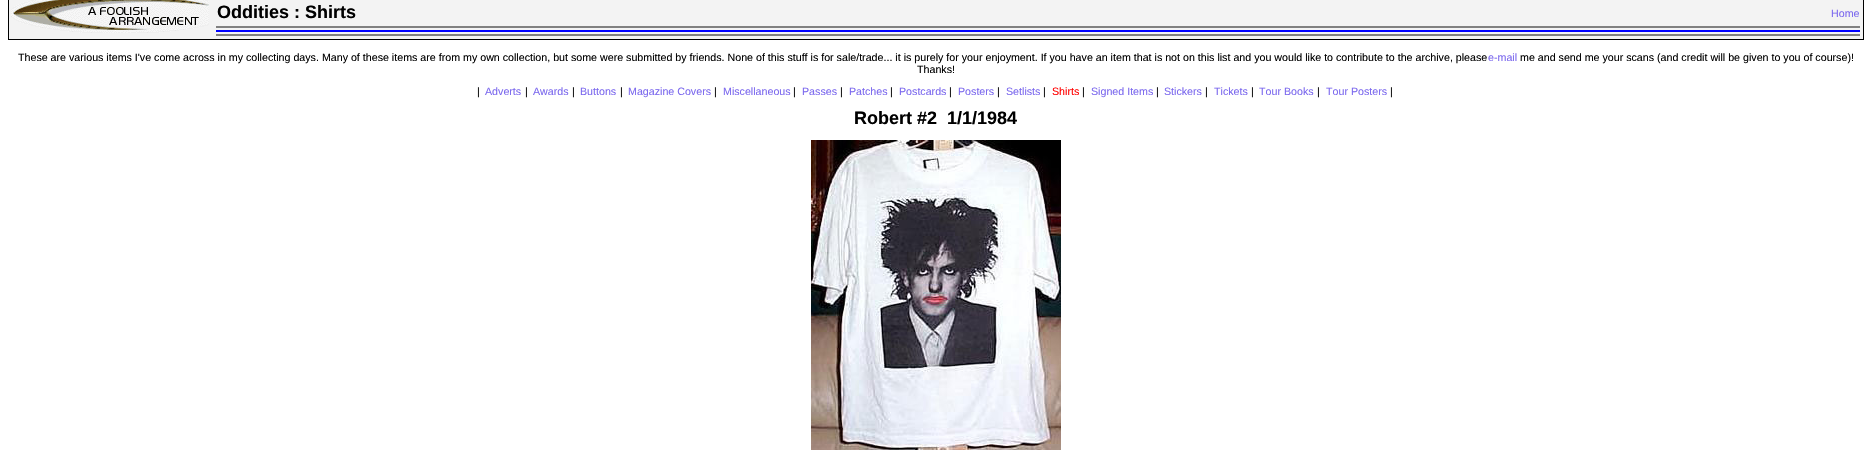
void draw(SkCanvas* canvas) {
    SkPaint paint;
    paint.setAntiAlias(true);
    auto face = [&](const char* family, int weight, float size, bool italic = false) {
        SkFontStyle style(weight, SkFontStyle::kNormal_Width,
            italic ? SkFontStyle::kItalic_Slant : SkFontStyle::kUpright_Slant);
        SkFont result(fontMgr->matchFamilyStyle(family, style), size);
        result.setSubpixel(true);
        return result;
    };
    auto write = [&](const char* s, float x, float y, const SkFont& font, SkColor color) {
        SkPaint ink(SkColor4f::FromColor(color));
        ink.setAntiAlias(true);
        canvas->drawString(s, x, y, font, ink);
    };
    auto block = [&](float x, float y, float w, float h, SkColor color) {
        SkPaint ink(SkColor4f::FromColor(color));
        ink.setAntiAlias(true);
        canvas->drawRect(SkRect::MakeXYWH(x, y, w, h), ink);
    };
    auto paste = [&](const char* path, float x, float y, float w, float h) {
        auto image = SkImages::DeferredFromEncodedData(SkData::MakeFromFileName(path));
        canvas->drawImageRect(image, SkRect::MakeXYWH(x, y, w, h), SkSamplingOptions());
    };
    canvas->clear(SK_ColorWHITE);
    paint.setColor(SkColorSetRGB(243, 243, 243));
    canvas->drawRect(SkRect::MakeXYWH(8.5f, -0.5f, 1855, 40), paint);
    paint.setStyle(SkPaint::kStroke_Style);
    paint.setStrokeWidth(1);
    paint.setColor(SK_ColorBLACK);
    canvas->drawRect(SkRect::MakeXYWH(8.5f, -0.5f, 1855, 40), paint);
    paste("pic1.png", 11, 0, 198, 33);
    auto kFont1 = face("Liberation Sans", 700, 18);
    write("Oddities : Shirts", 217, 18, kFont1, SK_ColorBLACK);
    auto kFont2 = face("Liberation Sans", 400, 10.67f);
    write("Home", 1831, 17, kFont2, SkColorSetRGB(123, 104, 238));
    block(216, 26, 1644, 2, SkColorSetRGB(128, 128, 128));
    block(216, 30, 1644, 2, SkColorSetRGB(0, 0, 255));
    block(216, 34, 1644, 2, SkColorSetRGB(128, 128, 128));
    write("These are various items I've come across in my collecting days. Many of these items are from my own collection, but some were submitted by friends. None of this stuff is for sale/trade... it is purely for your enjoyment. If you have an item that is not on this list and you would like to contribute to the archive, please", 18, 61, kFont2, SK_ColorBLACK);
    write("e-mail", 1488, 61, kFont2, SkColorSetRGB(123, 104, 238));
    write("me and send me your scans (and credit will be given to you of course)!", 1520, 61, kFont2, SK_ColorBLACK);
    write("Thanks!", 917, 73, kFont2, SK_ColorBLACK);
    write("|", 477, 95, kFont2, SK_ColorBLACK);
    write("Adverts", 485, 95, kFont2, SkColorSetRGB(123, 104, 238));
    write("|", 525, 95, kFont2, SK_ColorBLACK);
    write("Awards", 533, 95, kFont2, SkColorSetRGB(123, 104, 238));
    write("|", 572, 95, kFont2, SK_ColorBLACK);
    write("Buttons", 580, 95, kFont2, SkColorSetRGB(123, 104, 238));
    write("|", 620, 95, kFont2, SK_ColorBLACK);
    write("Magazine Covers", 628, 95, kFont2, SkColorSetRGB(123, 104, 238));
    write("|", 714, 95, kFont2, SK_ColorBLACK);
    write("Miscellaneous", 723, 95, kFont2, SkColorSetRGB(123, 104, 238));
    write("|", 793, 95, kFont2, SK_ColorBLACK);
    write("Passes", 802, 95, kFont2, SkColorSetRGB(123, 104, 238));
    write("|", 840, 95, kFont2, SK_ColorBLACK);
    write("Patches", 849, 95, kFont2, SkColorSetRGB(123, 104, 238));
    write("|", 890, 95, kFont2, SK_ColorBLACK);
    write("Postcards", 899, 95, kFont2, SkColorSetRGB(123, 104, 238));
    write("|", 949, 95, kFont2, SK_ColorBLACK);
    write("Posters", 958, 95, kFont2, SkColorSetRGB(123, 104, 238));
    write("|", 997, 95, kFont2, SK_ColorBLACK);
    write("Setlists", 1006, 95, kFont2, SkColorSetRGB(123, 104, 238));
    write("|", 1043, 95, kFont2, SK_ColorBLACK);
    write("Shirts", 1052, 95, kFont2, SkColorSetRGB(255, 0, 0));
    write("|", 1082, 95, kFont2, SK_ColorBLACK);
    write("Signed Items", 1091, 95, kFont2, SkColorSetRGB(123, 104, 238));
    write("|", 1156, 95, kFont2, SK_ColorBLACK);
    write("Stickers", 1164, 95, kFont2, SkColorSetRGB(123, 104, 238));
    write("|", 1205, 95, kFont2, SK_ColorBLACK);
    write("Tickets", 1214, 95, kFont2, SkColorSetRGB(123, 104, 238));
    write("|", 1251, 95, kFont2, SK_ColorBLACK);
    write("Tour Books", 1259, 95, kFont2, SkColorSetRGB(123, 104, 238));
    write("|", 1317, 95, kFont2, SK_ColorBLACK);
    write("Tour Posters", 1326, 95, kFont2, SkColorSetRGB(123, 104, 238));
    write("|", 1390, 95, kFont2, SK_ColorBLACK);
    write("Robert #2  1/1/1984", 854, 124, kFont1, SK_ColorBLACK);
    paste("pic2.png", 811, 140, 250, 310);
}
